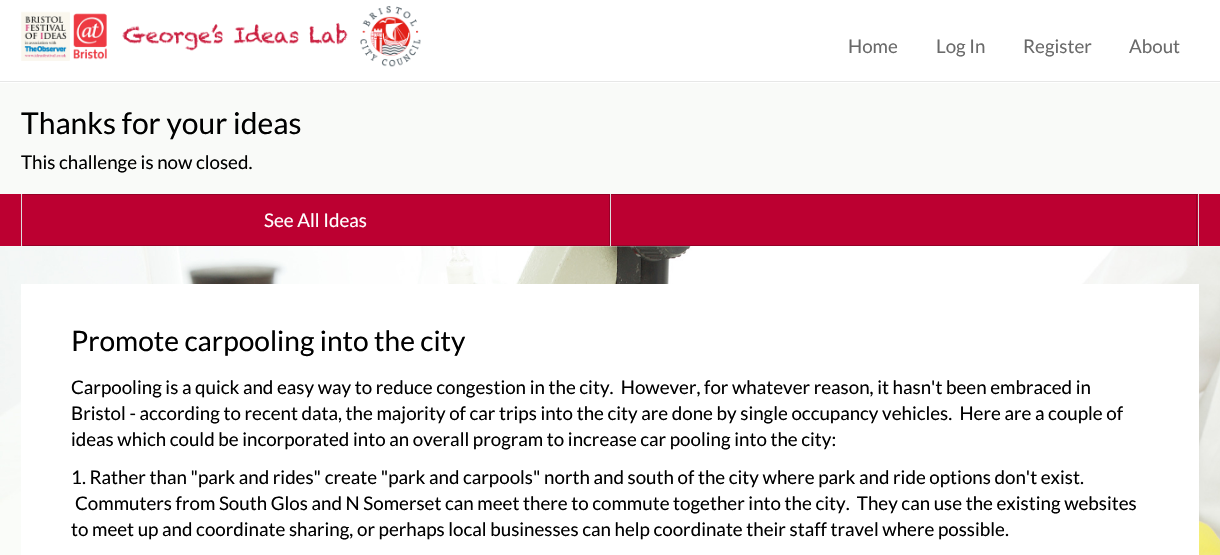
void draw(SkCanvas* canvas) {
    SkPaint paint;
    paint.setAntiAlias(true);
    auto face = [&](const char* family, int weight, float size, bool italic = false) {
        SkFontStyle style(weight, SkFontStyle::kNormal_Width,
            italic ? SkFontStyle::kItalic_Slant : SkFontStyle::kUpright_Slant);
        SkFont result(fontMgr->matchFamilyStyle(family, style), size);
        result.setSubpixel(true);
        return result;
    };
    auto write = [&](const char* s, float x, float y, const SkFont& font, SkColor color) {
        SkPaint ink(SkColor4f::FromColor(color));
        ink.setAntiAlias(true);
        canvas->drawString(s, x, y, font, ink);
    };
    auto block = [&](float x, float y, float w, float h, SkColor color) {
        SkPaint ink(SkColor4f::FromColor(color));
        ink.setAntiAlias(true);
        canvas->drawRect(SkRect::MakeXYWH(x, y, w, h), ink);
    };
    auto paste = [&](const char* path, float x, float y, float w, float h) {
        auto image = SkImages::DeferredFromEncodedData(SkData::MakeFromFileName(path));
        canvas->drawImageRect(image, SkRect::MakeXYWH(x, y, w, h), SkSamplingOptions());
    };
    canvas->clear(SK_ColorWHITE);
    block(0, 81, 1220, 1, SkColorSetRGB(231, 231, 231));
    paste("pic1.png", 21, 6, 400, 61);
    auto kFont1 = face("Lato", 400, 18.75f);
    write("Home", 848, 53, kFont1, SkColorSetRGB(106, 106, 106));
    write("Log In", 936, 53, kFont1, SkColorSetRGB(106, 106, 106));
    write("Register", 1023, 53, kFont1, SkColorSetRGB(106, 106, 106));
    write("About", 1129, 53, kFont1, SkColorSetRGB(106, 106, 106));
    block(0, 83, 1220, 111, SkColorSetRGB(249, 250, 248));
    auto kFont2 = face("Lato", 400, 30);
    write("Thanks for your ideas", 21, 134, kFont2, SK_ColorBLACK);
    write("This challenge is now closed.", 21, 169, kFont1, SK_ColorBLACK);
    block(0, 194, 1220, 52, SkColorSetRGB(188, 0, 49));
    block(1198, 194, 1, 52, SkColorSetRGB(221, 221, 221));
    block(21, 194, 1, 52, SkColorSetRGB(221, 221, 221));
    block(23, 194, 1175, 1, SkColorSetRGB(150, 0, 39));
    block(609, 194, 1, 52, SkColorSetRGB(150, 0, 39));
    block(23, 245, 587, 1, SkColorSetRGB(150, 0, 39));
    write("See All Ideas", 264, 227, kFont1, SK_ColorWHITE);
    block(1196, 194, 1, 52, SkColorSetRGB(150, 0, 39));
    block(610, 245, 588, 1, SkColorSetRGB(150, 0, 39));
    block(610, 194, 1, 52, SkColorSetRGB(221, 221, 221));
    paste("pic2.png", 0, 246, 1220, 309);
    block(21, 284, 1178, 271, SK_ColorWHITE);
    auto kFont3 = face("Lato", 400, 28.1f);
    write("Promote carpooling into the city", 71, 351, kFont3, SK_ColorBLACK);
    write("Carpooling is a quick and easy way to reduce congestion in the city.  However, for whatever reason, it hasn't been embraced in", 71, 394, kFont1, SK_ColorBLACK);
    write("Bristol - according to recent data, the majority of car trips into the city are done by single occupancy vehicles.  Here are a couple of", 71, 420, kFont1, SK_ColorBLACK);
    write("ideas which could be incorporated into an overall program to increase car pooling into the city:", 71, 446, kFont1, SK_ColorBLACK);
    write("1. Rather than \"park and rides\" create \"park and carpools\" north and south of the city where park and ride options don't exist.", 71, 484, kFont1, SK_ColorBLACK);
    write("Commuters from South Glos and N Somerset can meet there to commute together into the city.  They can use the existing websites", 75, 510, kFont1, SK_ColorBLACK);
    write("to meet up and coordinate sharing, or perhaps local businesses can help coordinate their staff travel where possible.", 71, 536, kFont1, SK_ColorBLACK);
}
